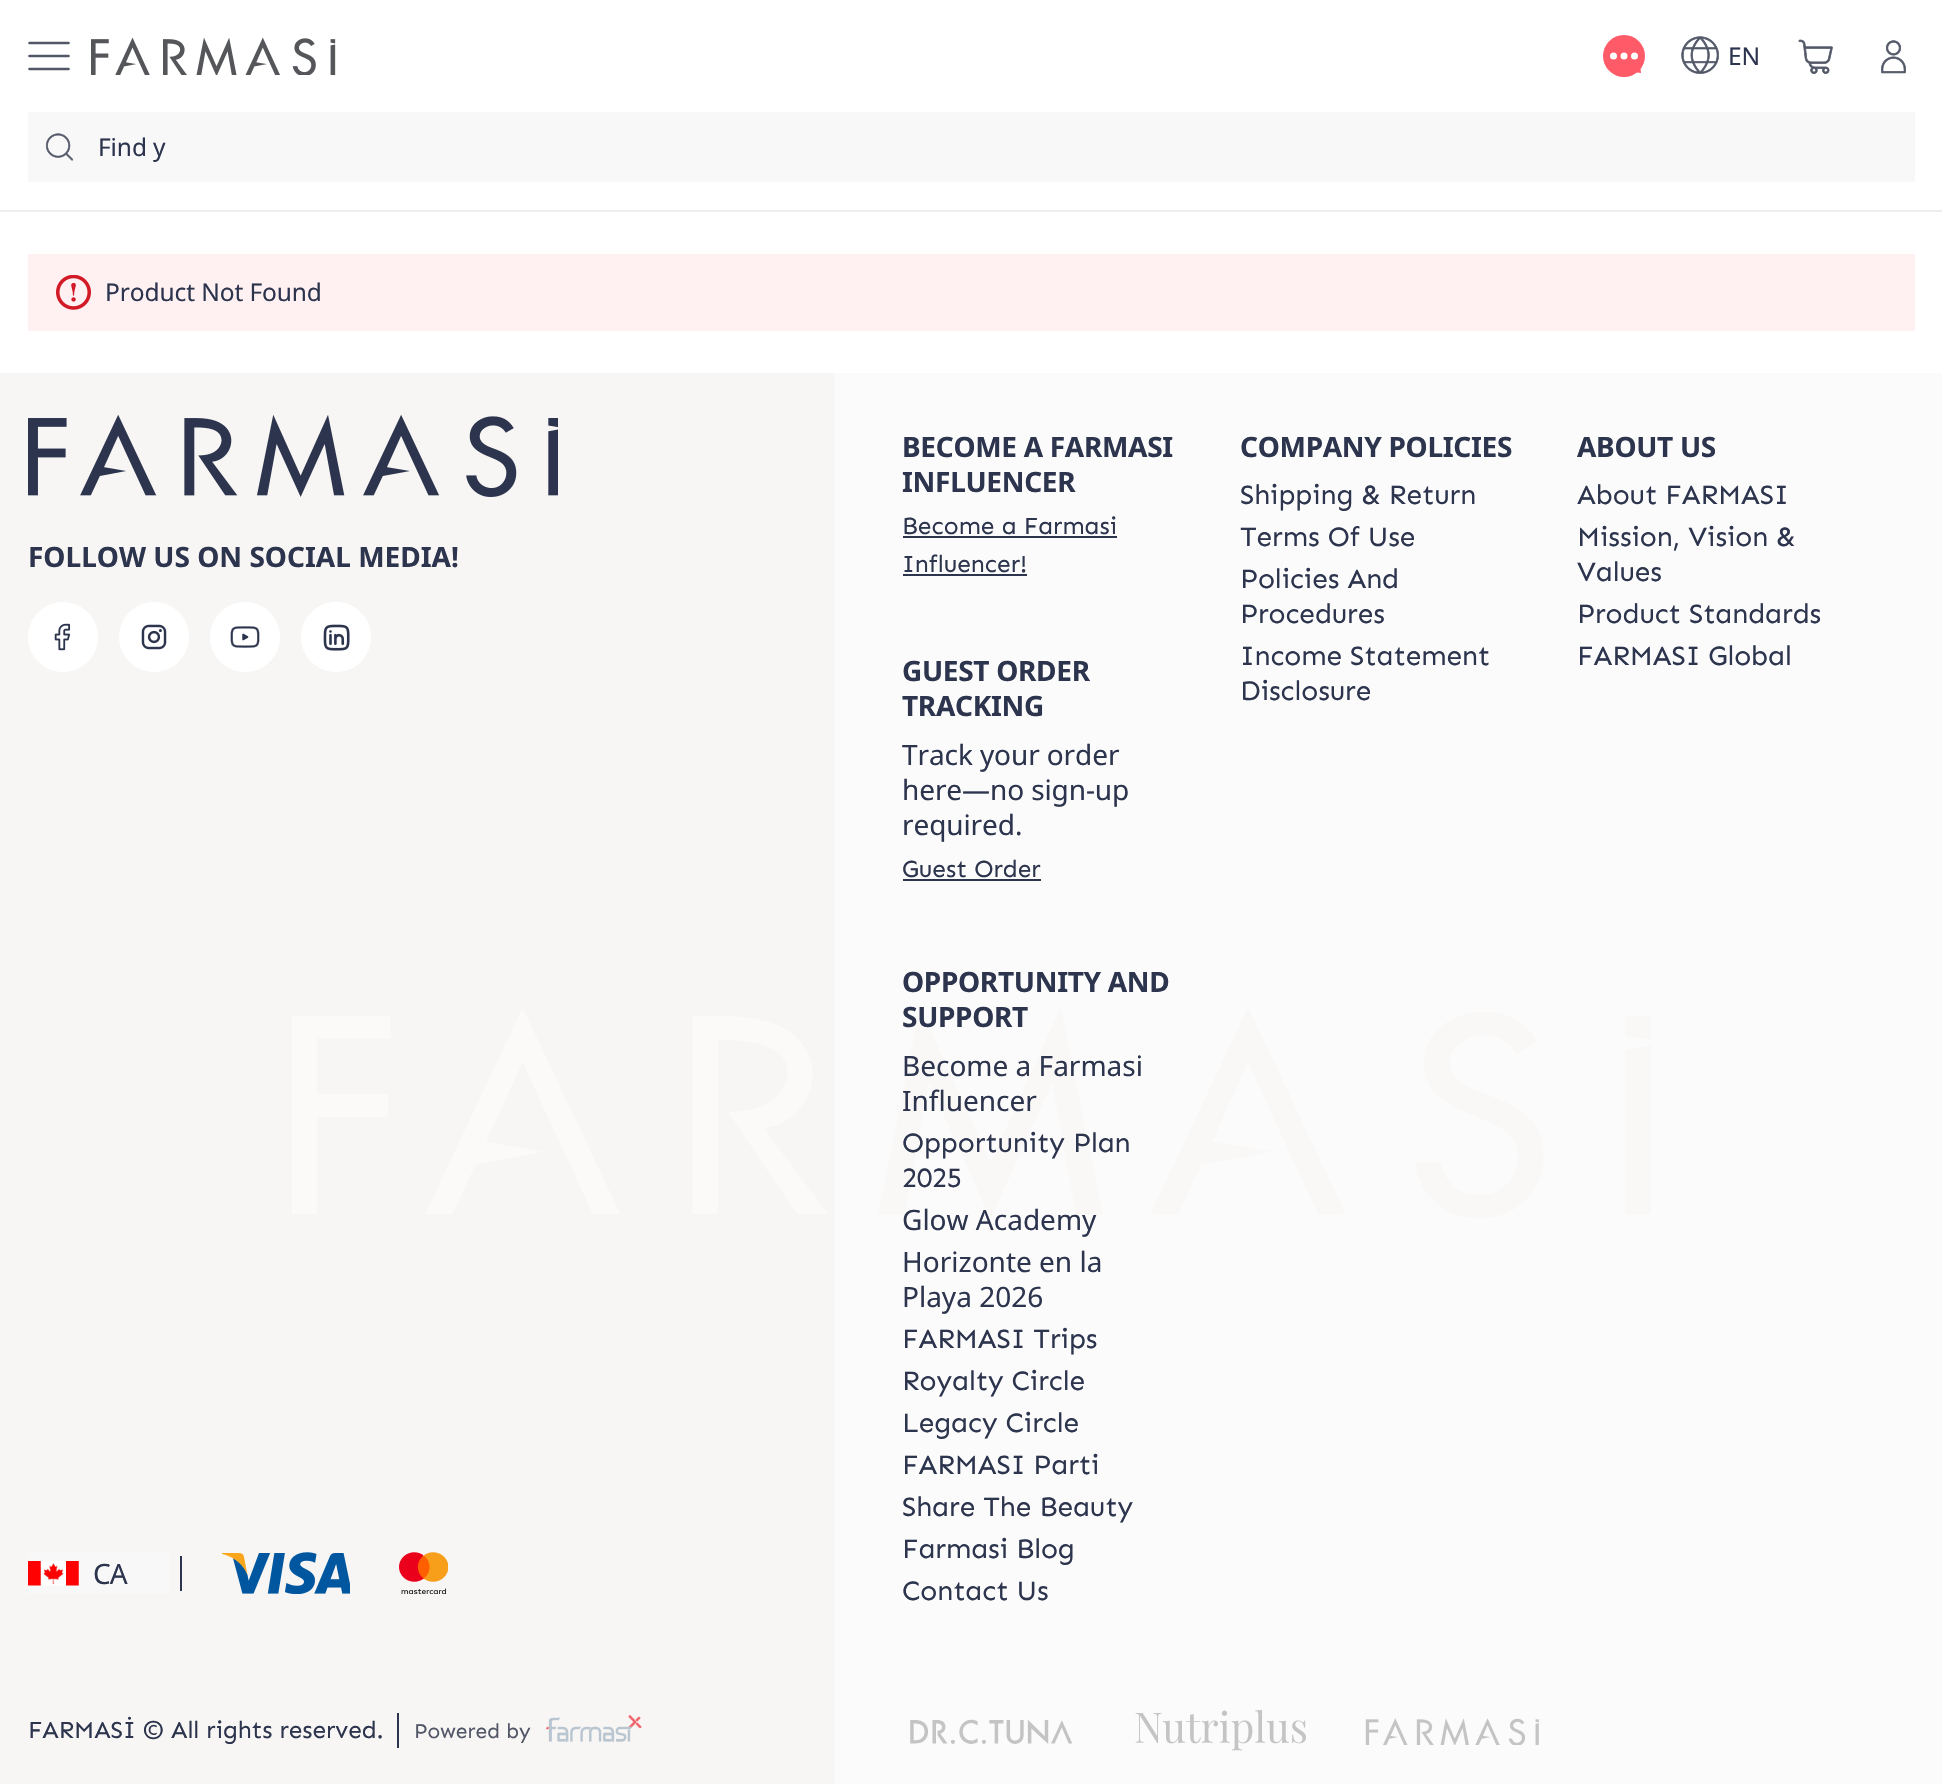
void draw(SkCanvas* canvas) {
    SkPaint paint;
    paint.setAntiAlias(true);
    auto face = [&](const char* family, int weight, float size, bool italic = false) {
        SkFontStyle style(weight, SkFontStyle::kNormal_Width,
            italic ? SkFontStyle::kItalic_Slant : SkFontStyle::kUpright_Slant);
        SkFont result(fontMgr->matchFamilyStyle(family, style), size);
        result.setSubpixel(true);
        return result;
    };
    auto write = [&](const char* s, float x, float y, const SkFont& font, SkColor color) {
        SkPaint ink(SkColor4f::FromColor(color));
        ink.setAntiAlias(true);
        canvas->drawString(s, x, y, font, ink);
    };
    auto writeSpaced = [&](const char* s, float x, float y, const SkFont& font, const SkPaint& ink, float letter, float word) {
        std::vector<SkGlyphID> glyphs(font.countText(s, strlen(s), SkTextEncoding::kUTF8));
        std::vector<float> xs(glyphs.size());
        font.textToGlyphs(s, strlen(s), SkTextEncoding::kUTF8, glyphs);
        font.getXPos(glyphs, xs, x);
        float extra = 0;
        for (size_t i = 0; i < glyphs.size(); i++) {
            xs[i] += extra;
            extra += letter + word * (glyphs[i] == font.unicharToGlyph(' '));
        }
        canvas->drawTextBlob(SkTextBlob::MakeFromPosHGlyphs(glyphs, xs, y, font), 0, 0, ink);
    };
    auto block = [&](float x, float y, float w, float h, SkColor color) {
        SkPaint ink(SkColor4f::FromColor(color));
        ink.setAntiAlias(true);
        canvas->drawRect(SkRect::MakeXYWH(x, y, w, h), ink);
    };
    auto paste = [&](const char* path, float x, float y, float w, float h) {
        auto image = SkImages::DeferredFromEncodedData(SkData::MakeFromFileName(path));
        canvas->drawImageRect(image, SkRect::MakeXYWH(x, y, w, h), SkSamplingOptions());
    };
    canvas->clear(SK_ColorWHITE);
    block(0, 210, 1942, 2, SkColorSetRGB(238, 238, 239));
    paint.setStyle(SkPaint::kStroke_Style);
    paint.setStrokeWidth(2.6f);
    paint.setStrokeCap(SkPaint::kRound_Cap);
    paint.setColor(SkColorSetRGB(82, 87, 103));
    canvas->drawPath(SkPathBuilder().moveTo(29.5f, 43).lineTo(68.5f, 43).moveTo(29.5f, 56).lineTo(68.5f, 56).moveTo(29.5f, 69).lineTo(68.5f, 69).detach(), paint);
    paste("pic1.png", 91, 37, 245, 38);
    paint.setStyle(SkPaint::kFill_Style);
    paint.setColor(SkColorSetRGB(255, 90, 104));
    canvas->drawCircle(1624, 56, 21, paint);
    canvas->drawPath(SkPathBuilder().moveTo(1641, 73).lineTo(1622, 70.5f).lineTo(1638.5f, 54).close().detach(), paint);
    paint.setColor(SK_ColorWHITE);
    canvas->drawCircle(1624, 56, 3.5f, paint);
    canvas->drawCircle(1613.5f, 56, 3.5f, paint);
    canvas->drawCircle(1634.5f, 56, 3.5f, paint);
    paste("pic2.png", 1681, 36, 38, 38);
    auto kFont1 = face("Noto Sans", 400, 24.5f);
    paint.setColor(SkColorSetRGB(45, 53, 78));
    writeSpaced("EN", 1728, 65, kFont1, paint, -0.1f, 0);
    paste("pic3.png", 1798, 39, 35, 35);
    paste("pic4.png", 1881, 40, 25, 34);
    block(28, 112, 1887, 70, SkColorSetRGB(248, 248, 248));
    paste("pic5.png", 45, 133, 29, 28);
    writeSpaced("Find y", 98, 156, kFont1, paint, -0.1f, 0);
    block(28, 254, 1887, 77, SkColorSetRGB(255, 241, 242));
    paste("pic6.png", 56, 275, 35, 35);
    writeSpaced("Product Not Found", 105, 301, kFont1, paint, -0.1f, 0);
    block(0, 373, 835, 1411, SkColorSetRGB(248, 246, 244));
    block(835, 373, 1107, 1411, SkColorSetRGB(251, 251, 251));
    paste("pic7.png", 28, 415, 530, 82);
    auto kFont2 = face("Noto Sans", 700, 28);
    write("FOLLOW US ON SOCIAL MEDIA!", 28, 567, kFont2, SkColorSetRGB(45, 53, 78));
    paste("pic8.png", 28, 602, 70, 70);
    paste("pic9.png", 119, 602, 70, 70);
    paste("pic10.png", 210, 602, 70, 70);
    paste("pic11.png", 301, 602, 70, 70);
    block(28, 1552, 142, 42, SkColorSetRGB(248, 248, 248));
    paste("pic12.png", 28, 1561, 51, 25);
    auto kFont3 = face("Noto Sans", 400, 28);
    writeSpaced("CA", 93, 1584, kFont3, paint, -1, 0);
    block(180, 1556, 2, 35, SkColorSetRGB(45, 53, 78));
    paste("pic13.png", 222, 1552, 128, 42);
    paste("pic14.png", 399, 1552, 49, 42);
    writeSpaced("BECOME A FARMASI", 902, 457, kFont2, paint, -0.3f, 0);
    writeSpaced("INFLUENCER", 902, 492, kFont2, paint, -0.3f, 0);
    auto kFont4 = face("Sen", 400, 24.5f);
    write("Become a Farmasi", 902, 534, kFont4, SkColorSetRGB(45, 53, 78));
    block(903, 536, 214, 2, SkColorSetRGB(45, 53, 78));
    write("Influencer!", 902, 572, kFont4, SkColorSetRGB(45, 53, 78));
    block(903, 574, 124, 2, SkColorSetRGB(45, 53, 78));
    writeSpaced("GUEST ORDER", 902, 681, kFont2, paint, -0.3f, 0);
    writeSpaced("TRACKING", 902, 716, kFont2, paint, -0.3f, 0);
    writeSpaced("Track your order", 902, 765, kFont3, paint, -0.1f, 0);
    writeSpaced("here—no sign-up", 902, 800, kFont3, paint, -0.1f, 0);
    writeSpaced("required.", 902, 835, kFont3, paint, -0.1f, 0);
    write("Guest Order", 902, 877, kFont4, SkColorSetRGB(45, 53, 78));
    block(903, 879, 138, 2, SkColorSetRGB(45, 53, 78));
    writeSpaced("COMPANY POLICIES", 1240, 457, kFont2, paint, -0.3f, 0);
    auto kFont5 = face("Sen", 400, 28);
    writeSpaced("Shipping & Return", 1240, 504, kFont5, paint, -0.1f, 0);
    writeSpaced("Terms Of Use", 1240, 546, kFont5, paint, -0.1f, 0);
    writeSpaced("Policies And", 1240, 588, kFont5, paint, -0.1f, 0);
    writeSpaced("Procedures", 1240, 623, kFont5, paint, -0.1f, 0);
    writeSpaced("Income Statement", 1240, 665, kFont5, paint, -0.1f, 0);
    writeSpaced("Disclosure", 1240, 700, kFont5, paint, -0.1f, 0);
    writeSpaced("ABOUT US", 1577, 457, kFont2, paint, -0.3f, 0);
    writeSpaced("About FARMASI", 1577, 504, kFont5, paint, -0.1f, 0);
    writeSpaced("Mission, Vision &", 1577, 546, kFont5, paint, -0.1f, 0);
    writeSpaced("Values", 1577, 581, kFont5, paint, -0.1f, 0);
    writeSpaced("Product Standards", 1577, 623, kFont5, paint, -0.1f, 0);
    writeSpaced("FARMASI Global", 1577, 665, kFont5, paint, -0.1f, 0);
    writeSpaced("OPPORTUNITY AND", 902, 992, kFont2, paint, -0.3f, 0);
    paste("pic15.png", 292, 1009, 1359, 209);
    writeSpaced("SUPPORT", 902, 1027, kFont2, paint, -0.3f, 0);
    write("Become a Farmasi", 902, 1076, kFont3, SkColorSetRGB(45, 53, 78));
    write("Influencer", 902, 1111, kFont3, SkColorSetRGB(45, 53, 78));
    writeSpaced("Opportunity Plan", 902, 1152, kFont5, paint, -0.1f, 0);
    writeSpaced("2025", 902, 1187, kFont5, paint, -0.1f, 0);
    write("Glow Academy", 902, 1230, kFont3, SkColorSetRGB(45, 53, 78));
    write("Horizonte en la", 902, 1272, kFont3, SkColorSetRGB(45, 53, 78));
    write("Playa 2026", 902, 1307, kFont3, SkColorSetRGB(45, 53, 78));
    writeSpaced("FARMASI Trips", 902, 1348, kFont5, paint, -0.1f, 0);
    writeSpaced("Royalty Circle", 902, 1390, kFont5, paint, -0.1f, 0);
    writeSpaced("Legacy Circle", 902, 1432, kFont5, paint, -0.1f, 0);
    writeSpaced("FARMASI Parti", 902, 1474, kFont5, paint, -0.1f, 0);
    writeSpaced("Share The Beauty", 902, 1516, kFont5, paint, -0.1f, 0);
    writeSpaced("Farmasi Blog", 902, 1558, kFont5, paint, -0.1f, 0);
    writeSpaced("Contact Us", 902, 1600, kFont5, paint, -0.1f, 0);
    writeSpaced("FARMASİ © All rights reserved.", 28, 1738, kFont4, paint, -0.1f, 0);
    block(397, 1713, 2, 35, SkColorSetRGB(45, 53, 78));
    auto kFont6 = face("Sen", 400, 21);
    write("Powered by", 414, 1738, kFont6, SkColorSetRGB(82, 87, 103));
    paste("pic16.png", 546, 1715, 96, 27);
    paste("pic17.png", 910, 1719, 163, 25);
    paste("pic18.png", 1135, 1709, 171, 42);
    paste("pic19.png", 1365, 1718, 174, 27);
}
